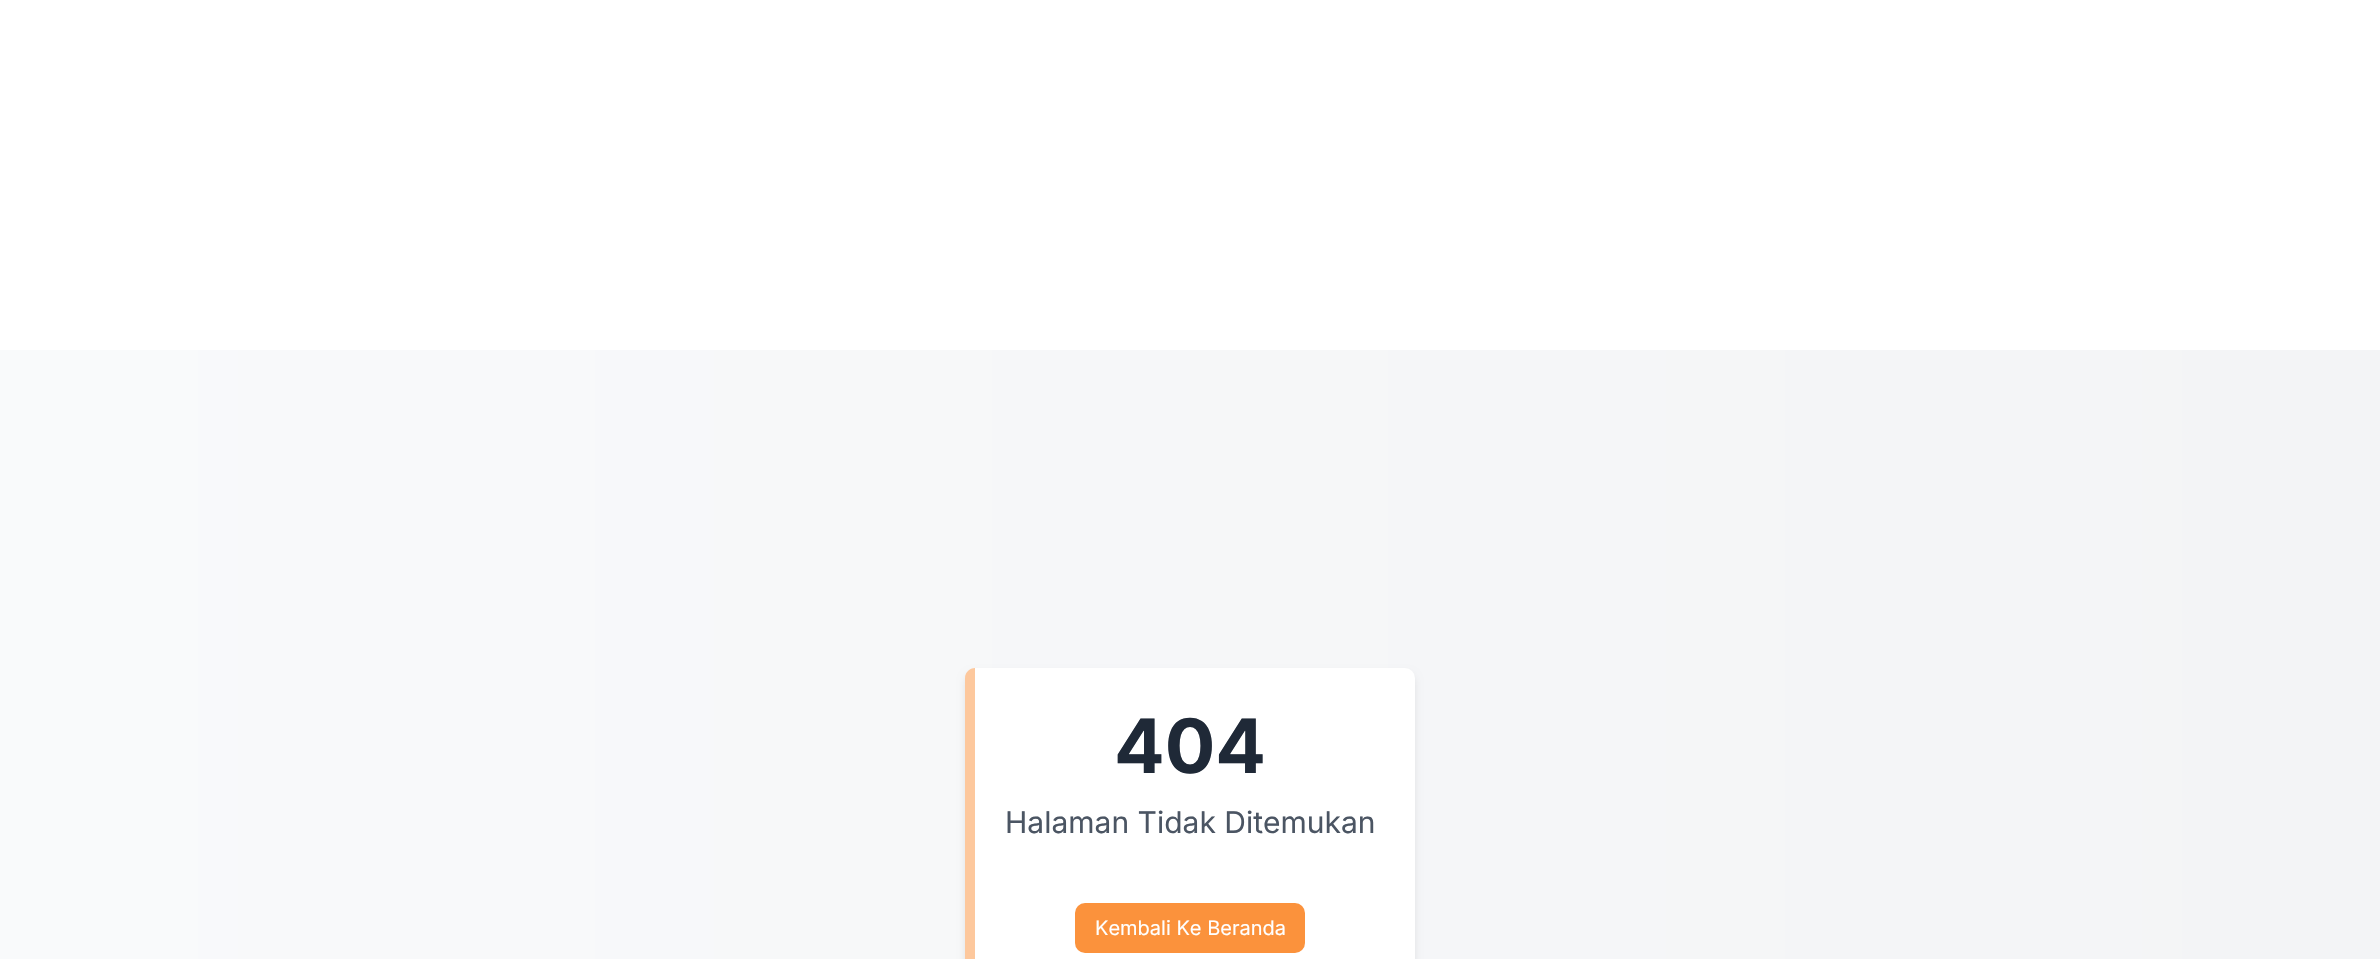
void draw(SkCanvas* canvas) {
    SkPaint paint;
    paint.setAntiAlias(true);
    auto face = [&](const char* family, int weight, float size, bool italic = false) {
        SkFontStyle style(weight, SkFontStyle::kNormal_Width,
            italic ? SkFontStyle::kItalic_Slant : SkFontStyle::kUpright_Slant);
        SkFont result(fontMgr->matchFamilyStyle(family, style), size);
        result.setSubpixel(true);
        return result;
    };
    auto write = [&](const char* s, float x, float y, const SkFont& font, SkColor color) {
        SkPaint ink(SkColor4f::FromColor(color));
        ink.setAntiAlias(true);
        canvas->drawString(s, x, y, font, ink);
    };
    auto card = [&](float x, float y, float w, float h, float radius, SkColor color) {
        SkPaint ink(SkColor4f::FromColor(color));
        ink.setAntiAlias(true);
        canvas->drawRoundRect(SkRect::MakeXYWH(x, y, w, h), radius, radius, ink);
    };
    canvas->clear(SK_ColorWHITE);
    {
        const SkColor colors[] = {SkColorSetRGB(249, 250, 251), SkColorSetRGB(243, 244, 246)};
        const float stops[] = {0, 1};
        const SkPoint ends[] = {{0, 830}, {2380, 830}};
        paint.setShader(SkGradientShader::MakeLinear(ends, colors, stops, 2, SkTileMode::kClamp));
        paint.setAlpha(255);
    }
    canvas->drawRect(SkRect::MakeXYWH(0, 350, 2380, 609), paint);
    paint.setShader(nullptr);
    paint.setColor(SkColorSetARGB(26, 0, 0, 0));
    paint.setMaskFilter(SkMaskFilter::MakeBlur(kNormal_SkBlurStyle, 4));
    canvas->drawRoundRect(SkRect::MakeXYWH(966, 674, 448, 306), 9, 9, paint);
    paint.setMaskFilter(nullptr);
    card(965, 668, 450, 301, 10, SK_ColorWHITE);
    paint.setColor(SkColorSetARGB(128, 251, 146, 60));
    canvas->drawPath(SkPathBuilder().moveTo(975, 668).lineTo(975, 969).cubicTo(969.5f, 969, 965, 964.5f, 965, 959).lineTo(965, 678).cubicTo(965, 672.5f, 969.5f, 668, 975, 668).close().detach(), paint);
    auto kFont1 = face("Inter", 700, 75);
    write("404", 1114, 773, kFont1, SkColorSetRGB(31, 41, 55));
    auto kFont2 = face("Inter", 400, 30);
    write("Halaman Tidak Ditemukan", 1005, 833, kFont2, SkColorSetRGB(75, 85, 99));
    card(1075, 903, 230, 50, 10, SkColorSetRGB(251, 146, 60));
    auto kFont3 = face("Inter", 400, 20);
    write("Kembali Ke Beranda", 1095, 935, kFont3, SK_ColorWHITE);
}
